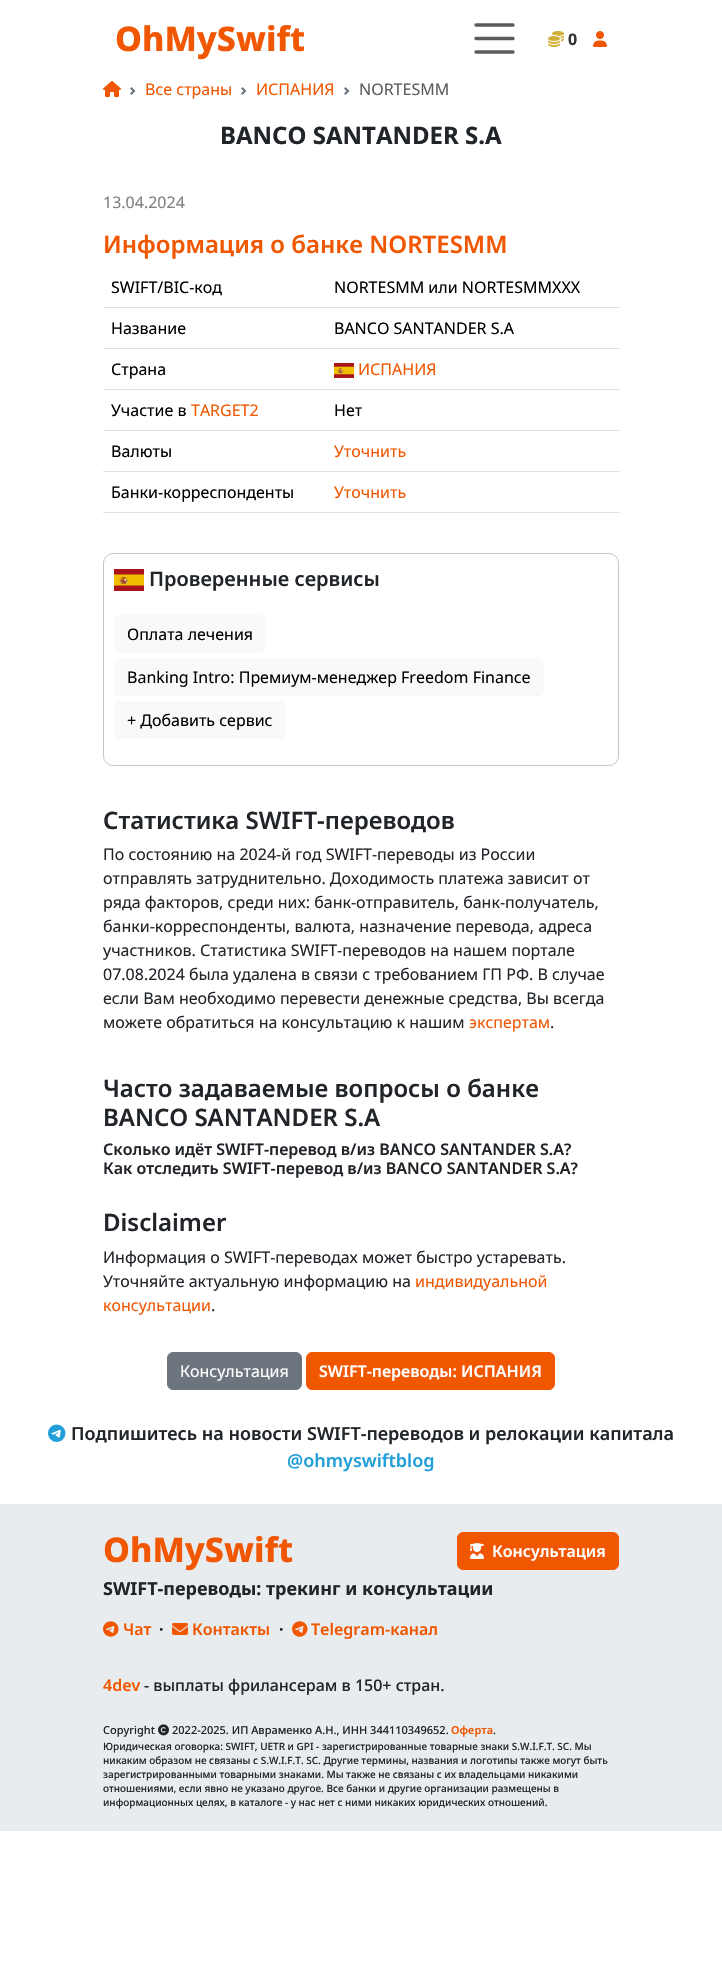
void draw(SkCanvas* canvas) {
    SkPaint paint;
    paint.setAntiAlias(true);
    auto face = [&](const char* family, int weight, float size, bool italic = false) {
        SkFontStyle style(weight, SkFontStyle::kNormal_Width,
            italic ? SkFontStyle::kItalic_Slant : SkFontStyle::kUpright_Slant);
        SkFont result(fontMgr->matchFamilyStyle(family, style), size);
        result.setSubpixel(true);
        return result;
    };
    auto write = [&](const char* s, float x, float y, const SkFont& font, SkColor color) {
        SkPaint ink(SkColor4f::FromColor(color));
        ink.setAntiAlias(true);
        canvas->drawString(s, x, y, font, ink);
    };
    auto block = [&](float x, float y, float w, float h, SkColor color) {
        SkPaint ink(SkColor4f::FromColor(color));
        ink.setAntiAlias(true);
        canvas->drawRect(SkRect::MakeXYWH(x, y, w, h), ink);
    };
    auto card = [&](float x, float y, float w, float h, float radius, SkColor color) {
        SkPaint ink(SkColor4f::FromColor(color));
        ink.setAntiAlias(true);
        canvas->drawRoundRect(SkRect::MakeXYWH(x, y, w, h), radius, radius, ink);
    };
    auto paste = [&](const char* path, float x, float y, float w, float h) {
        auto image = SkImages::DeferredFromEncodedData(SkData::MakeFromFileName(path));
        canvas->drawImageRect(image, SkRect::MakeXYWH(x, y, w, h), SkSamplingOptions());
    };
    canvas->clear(SK_ColorWHITE);
    auto kFont1 = face("Noto Sans", 800, 34);
    write("OhMySwift", 115, 51, kFont1, SkColorSetRGB(241, 86, 0));
    paint.setStyle(SkPaint::kStroke_Style);
    paint.setStrokeWidth(3.4f);
    paint.setStrokeCap(SkPaint::kRound_Cap);
    paint.setColor(SkColorSetRGB(89, 92, 95));
    canvas->drawPath(SkPathBuilder().moveTo(476, 25).lineTo(513, 25).moveTo(476, 38.5f).lineTo(513, 38.5f).moveTo(476, 52).lineTo(513, 52).detach(), paint);
    paste("pic1.png", 548, 31, 16, 16);
    auto kFont2 = face("Noto Sans", 700, 16);
    write("0", 568, 45, kFont2, SkColorSetRGB(51, 51, 51));
    paste("pic2.png", 593, 31, 14, 16);
    paste("pic3.png", 103, 81, 18, 16);
    paste("pic4.png", 130, 87, 6, 8);
    auto kFont3 = face("Noto Sans", 400, 16);
    write("Все страны", 145, 95, kFont3, SkColorSetRGB(241, 86, 0));
    paste("pic4.png", 241, 87, 6, 8);
    write("ИСПАНИЯ", 256, 95, kFont3, SkColorSetRGB(241, 86, 0));
    paste("pic4.png", 344, 87, 6, 8);
    write("NORTESMM", 359, 95, kFont3, SkColorSetRGB(89, 92, 95));
    auto kFont4 = face("Noto Sans", 700, 24);
    write("BANCO SANTANDER S.A", 220, 144, kFont4, SkColorSetRGB(33, 37, 41));
    write("13.04.2024", 103, 208, kFont3, SkColorSetRGB(128, 128, 128));
    auto kFont5 = face("Noto Sans", 600, 24);
    write("Информация о банке NORTESMM", 103, 253, kFont5, SkColorSetRGB(241, 86, 0));
    write("SWIFT/BIC-код", 111, 293, kFont3, SK_ColorBLACK);
    block(103, 307, 517, 1, SkColorSetRGB(222, 226, 230));
    write("NORTESMM или NORTESMMXXX", 334, 293, kFont3, SK_ColorBLACK);
    write("Название", 111, 334, kFont3, SK_ColorBLACK);
    block(103, 348, 517, 1, SkColorSetRGB(222, 226, 230));
    write("BANCO SANTANDER S.A", 334, 334, kFont3, SK_ColorBLACK);
    write("Страна", 111, 375, kFont3, SK_ColorBLACK);
    block(103, 389, 517, 1, SkColorSetRGB(222, 226, 230));
    paste("pic5.png", 334, 363, 20, 15);
    write("ИСПАНИЯ", 358, 375, kFont3, SkColorSetRGB(241, 86, 0));
    write("Участие в", 111, 416, kFont3, SK_ColorBLACK);
    write("TARGET2", 191, 416, kFont3, SkColorSetRGB(241, 86, 0));
    block(103, 430, 517, 1, SkColorSetRGB(222, 226, 230));
    write("Нет", 334, 416, kFont3, SK_ColorBLACK);
    write("Валюты", 111, 457, kFont3, SK_ColorBLACK);
    block(103, 471, 517, 1, SkColorSetRGB(222, 226, 230));
    write("Уточнить", 334, 457, kFont3, SkColorSetRGB(241, 86, 0));
    write("Банки-корреспонденты", 111, 498, kFont3, SK_ColorBLACK);
    block(103, 512, 517, 1, SkColorSetRGB(222, 226, 230));
    write("Уточнить", 334, 498, kFont3, SkColorSetRGB(241, 86, 0));
    paint.setStrokeWidth(1);
    paint.setStrokeCap(SkPaint::kButt_Cap);
    paint.setColor(SkColorSetRGB(200, 196, 196));
    canvas->drawRoundRect(SkRect::MakeXYWH(103.5f, 553.5f, 515, 212), 9.5f, 9.5f, paint);
    paste("pic6.png", 114, 569, 30, 22);
    auto kFont6 = face("Noto Sans", 600, 20);
    write("Проверенные сервисы", 149, 586, kFont6, SkColorSetRGB(33, 37, 41));
    card(114, 615, 152, 38, 6, SkColorSetRGB(248, 249, 250));
    write("Оплата лечения", 127, 640, kFont3, SK_ColorBLACK);
    card(114, 658, 430, 38, 6, SkColorSetRGB(248, 249, 250));
    write("Banking Intro: Премиум-менеджер Freedom Finance", 127, 683, kFont3, SK_ColorBLACK);
    card(114, 701, 172, 38, 6, SkColorSetRGB(248, 249, 250));
    write("+ Добавить сервис", 127, 726, kFont3, SK_ColorBLACK);
    write("Статистика SWIFT-переводов", 103, 829, kFont5, SkColorSetRGB(33, 37, 41));
    write("По состоянию на 2024-й год SWIFT-переводы из России", 103, 860, kFont3, SkColorSetRGB(33, 37, 41));
    write("отправлять затруднительно. Доходимость платежа зависит от", 103, 884, kFont3, SkColorSetRGB(33, 37, 41));
    write("ряда факторов, среди них: банк-отправитель, банк-получатель,", 103, 908, kFont3, SkColorSetRGB(33, 37, 41));
    write("банки-корреспонденты, валюта, назначение перевода, адреса", 103, 932, kFont3, SkColorSetRGB(33, 37, 41));
    write("участников. Статистика SWIFT-переводов на нашем портале", 103, 956, kFont3, SkColorSetRGB(33, 37, 41));
    write("07.08.2024 была удалена в связи с требованием ГП РФ. В случае", 103, 980, kFont3, SkColorSetRGB(33, 37, 41));
    write("если Вам необходимо перевести денежные средства, Вы всегда", 103, 1004, kFont3, SkColorSetRGB(33, 37, 41));
    write("можете обратиться на консультацию к нашим", 103, 1028, kFont3, SkColorSetRGB(33, 37, 41));
    write("экспертам", 469, 1028, kFont3, SkColorSetRGB(241, 86, 0));
    write(".", 550, 1028, kFont3, SkColorSetRGB(33, 37, 41));
    write("Часто задаваемые вопросы о банке", 103, 1097, kFont5, SkColorSetRGB(33, 37, 41));
    write("BANCO SANTANDER S.A", 103, 1126, kFont5, SkColorSetRGB(33, 37, 41));
    auto kFont7 = face("Noto Sans", 600, 16);
    write("Сколько идёт SWIFT-перевод в/из BANCO SANTANDER S.A?", 103, 1155, kFont7, SkColorSetRGB(33, 37, 41));
    write("Как отследить SWIFT-перевод в/из BANCO SANTANDER S.A?", 103, 1174, kFont7, SkColorSetRGB(33, 37, 41));
    write("Disclaimer", 103, 1231, kFont5, SkColorSetRGB(33, 37, 41));
    write("Информация о SWIFT-переводах может быстро устаревать.", 103, 1263, kFont3, SkColorSetRGB(33, 37, 41));
    write("Уточняйте актуальную информацию на", 103, 1287, kFont3, SkColorSetRGB(33, 37, 41));
    write("индивидуальной", 415, 1287, kFont3, SkColorSetRGB(241, 86, 0));
    write("консультации", 103, 1311, kFont3, SkColorSetRGB(241, 86, 0));
    write(".", 211, 1311, kFont3, SkColorSetRGB(33, 37, 41));
    paint.setStyle(SkPaint::kFill_Style);
    paint.setColor(SkColorSetRGB(108, 117, 125));
    canvas->drawRoundRect(SkRect::MakeXYWH(167.5f, 1352.5f, 134, 37), 5.5f, 5.5f, paint);
    paint.setStyle(SkPaint::kStroke_Style);
    canvas->drawRoundRect(SkRect::MakeXYWH(167.5f, 1352.5f, 134, 37), 5.5f, 5.5f, paint);
    write("Консультация", 180, 1377, kFont3, SK_ColorWHITE);
    paint.setStyle(SkPaint::kFill_Style);
    paint.setColor(SkColorSetRGB(241, 86, 0));
    canvas->drawRoundRect(SkRect::MakeXYWH(306.5f, 1352.5f, 248, 37), 5.5f, 5.5f, paint);
    paint.setStyle(SkPaint::kStroke_Style);
    canvas->drawRoundRect(SkRect::MakeXYWH(306.5f, 1352.5f, 248, 37), 5.5f, 5.5f, paint);
    write("SWIFT-переводы: ИСПАНИЯ", 319, 1377, kFont7, SK_ColorWHITE);
    paste("pic7.png", 48, 1424, 18, 18);
    auto kFont8 = face("Noto Sans", 600, 18);
    write("Подпишитесь на новости SWIFT-переводов и релокации капитала", 71, 1440, kFont8, SkColorSetRGB(33, 37, 41));
    write("@ohmyswiftblog", 287, 1467, kFont8, SkColorSetRGB(34, 158, 217));
    block(0, 1504, 722, 327, SkColorSetRGB(233, 236, 239));
    write("OhMySwift", 103, 1562, kFont1, SkColorSetRGB(241, 86, 0));
    paint.setStyle(SkPaint::kFill_Style);
    canvas->drawRoundRect(SkRect::MakeXYWH(457.5f, 1532.5f, 161, 37), 5.5f, 5.5f, paint);
    paint.setStyle(SkPaint::kStroke_Style);
    canvas->drawRoundRect(SkRect::MakeXYWH(457.5f, 1532.5f, 161, 37), 5.5f, 5.5f, paint);
    paste("pic8.png", 470, 1543, 14, 16);
    write("Консультация", 492, 1557, kFont7, SK_ColorWHITE);
    auto kFont9 = face("Noto Sans", 700, 18);
    write("SWIFT-переводы: трекинг и консультации", 103, 1595, kFont9, SkColorSetRGB(33, 37, 41));
    paste("pic9.png", 103, 1621, 16, 16);
    write("Чат", 123, 1635, kFont7, SkColorSetRGB(241, 86, 0));
    write("·", 159, 1635, kFont2, SkColorSetRGB(33, 37, 41));
    paste("pic10.png", 172, 1623, 16, 12);
    write("Контакты", 192, 1635, kFont7, SkColorSetRGB(241, 86, 0));
    write("·", 279, 1635, kFont2, SkColorSetRGB(33, 37, 41));
    paste("pic9.png", 292, 1621, 16, 16);
    write("Telegram-канал", 311, 1635, kFont7, SkColorSetRGB(241, 86, 0));
    write("4dev", 103, 1691, kFont7, SkColorSetRGB(241, 86, 0));
    auto kFont10 = face("Noto Sans", 500, 16);
    write("- выплаты фрилансерам в 150+ стран.", 144, 1691, kFont10, SkColorSetRGB(33, 37, 41));
    auto kFont11 = face("Noto Sans", 500, 11);
    write("Copyright", 103, 1734, kFont11, SkColorSetRGB(33, 37, 41));
    paste("pic11.png", 158, 1724, 11, 12);
    write("2022-2025. ИП Авраменко А.Н., ИНН 344110349652.", 172, 1734, kFont11, SkColorSetRGB(33, 37, 41));
    auto kFont12 = face("Noto Sans", 600, 11);
    write("Оферта", 451, 1734, kFont12, SkColorSetRGB(241, 86, 0));
    write(".", 493, 1734, kFont11, SkColorSetRGB(33, 37, 41));
    auto kFont13 = face("Noto Sans", 500, 10);
    write("Юридическая оговорка: SWIFT, UETR и GPI - зарегистрированные товарные знаки S.W.I.F.T. SC. Мы", 103, 1750, kFont13, SkColorSetRGB(33, 37, 41));
    write("никаким образом не связаны с S.W.I.F.T. SC. Другие термины, названия и логотипы также могут быть", 103, 1764, kFont13, SkColorSetRGB(33, 37, 41));
    write("зарегистрированными товарными знаками. Мы также не связаны с их владельцами никакими", 103, 1778, kFont13, SkColorSetRGB(33, 37, 41));
    write("отношениями, если явно не указано другое. Все банки и другие организации размещены в", 103, 1792, kFont13, SkColorSetRGB(33, 37, 41));
    write("информационных целях, в каталоге - у нас нет с ними никаких юридических отношений.", 103, 1806, kFont13, SkColorSetRGB(33, 37, 41));
}
